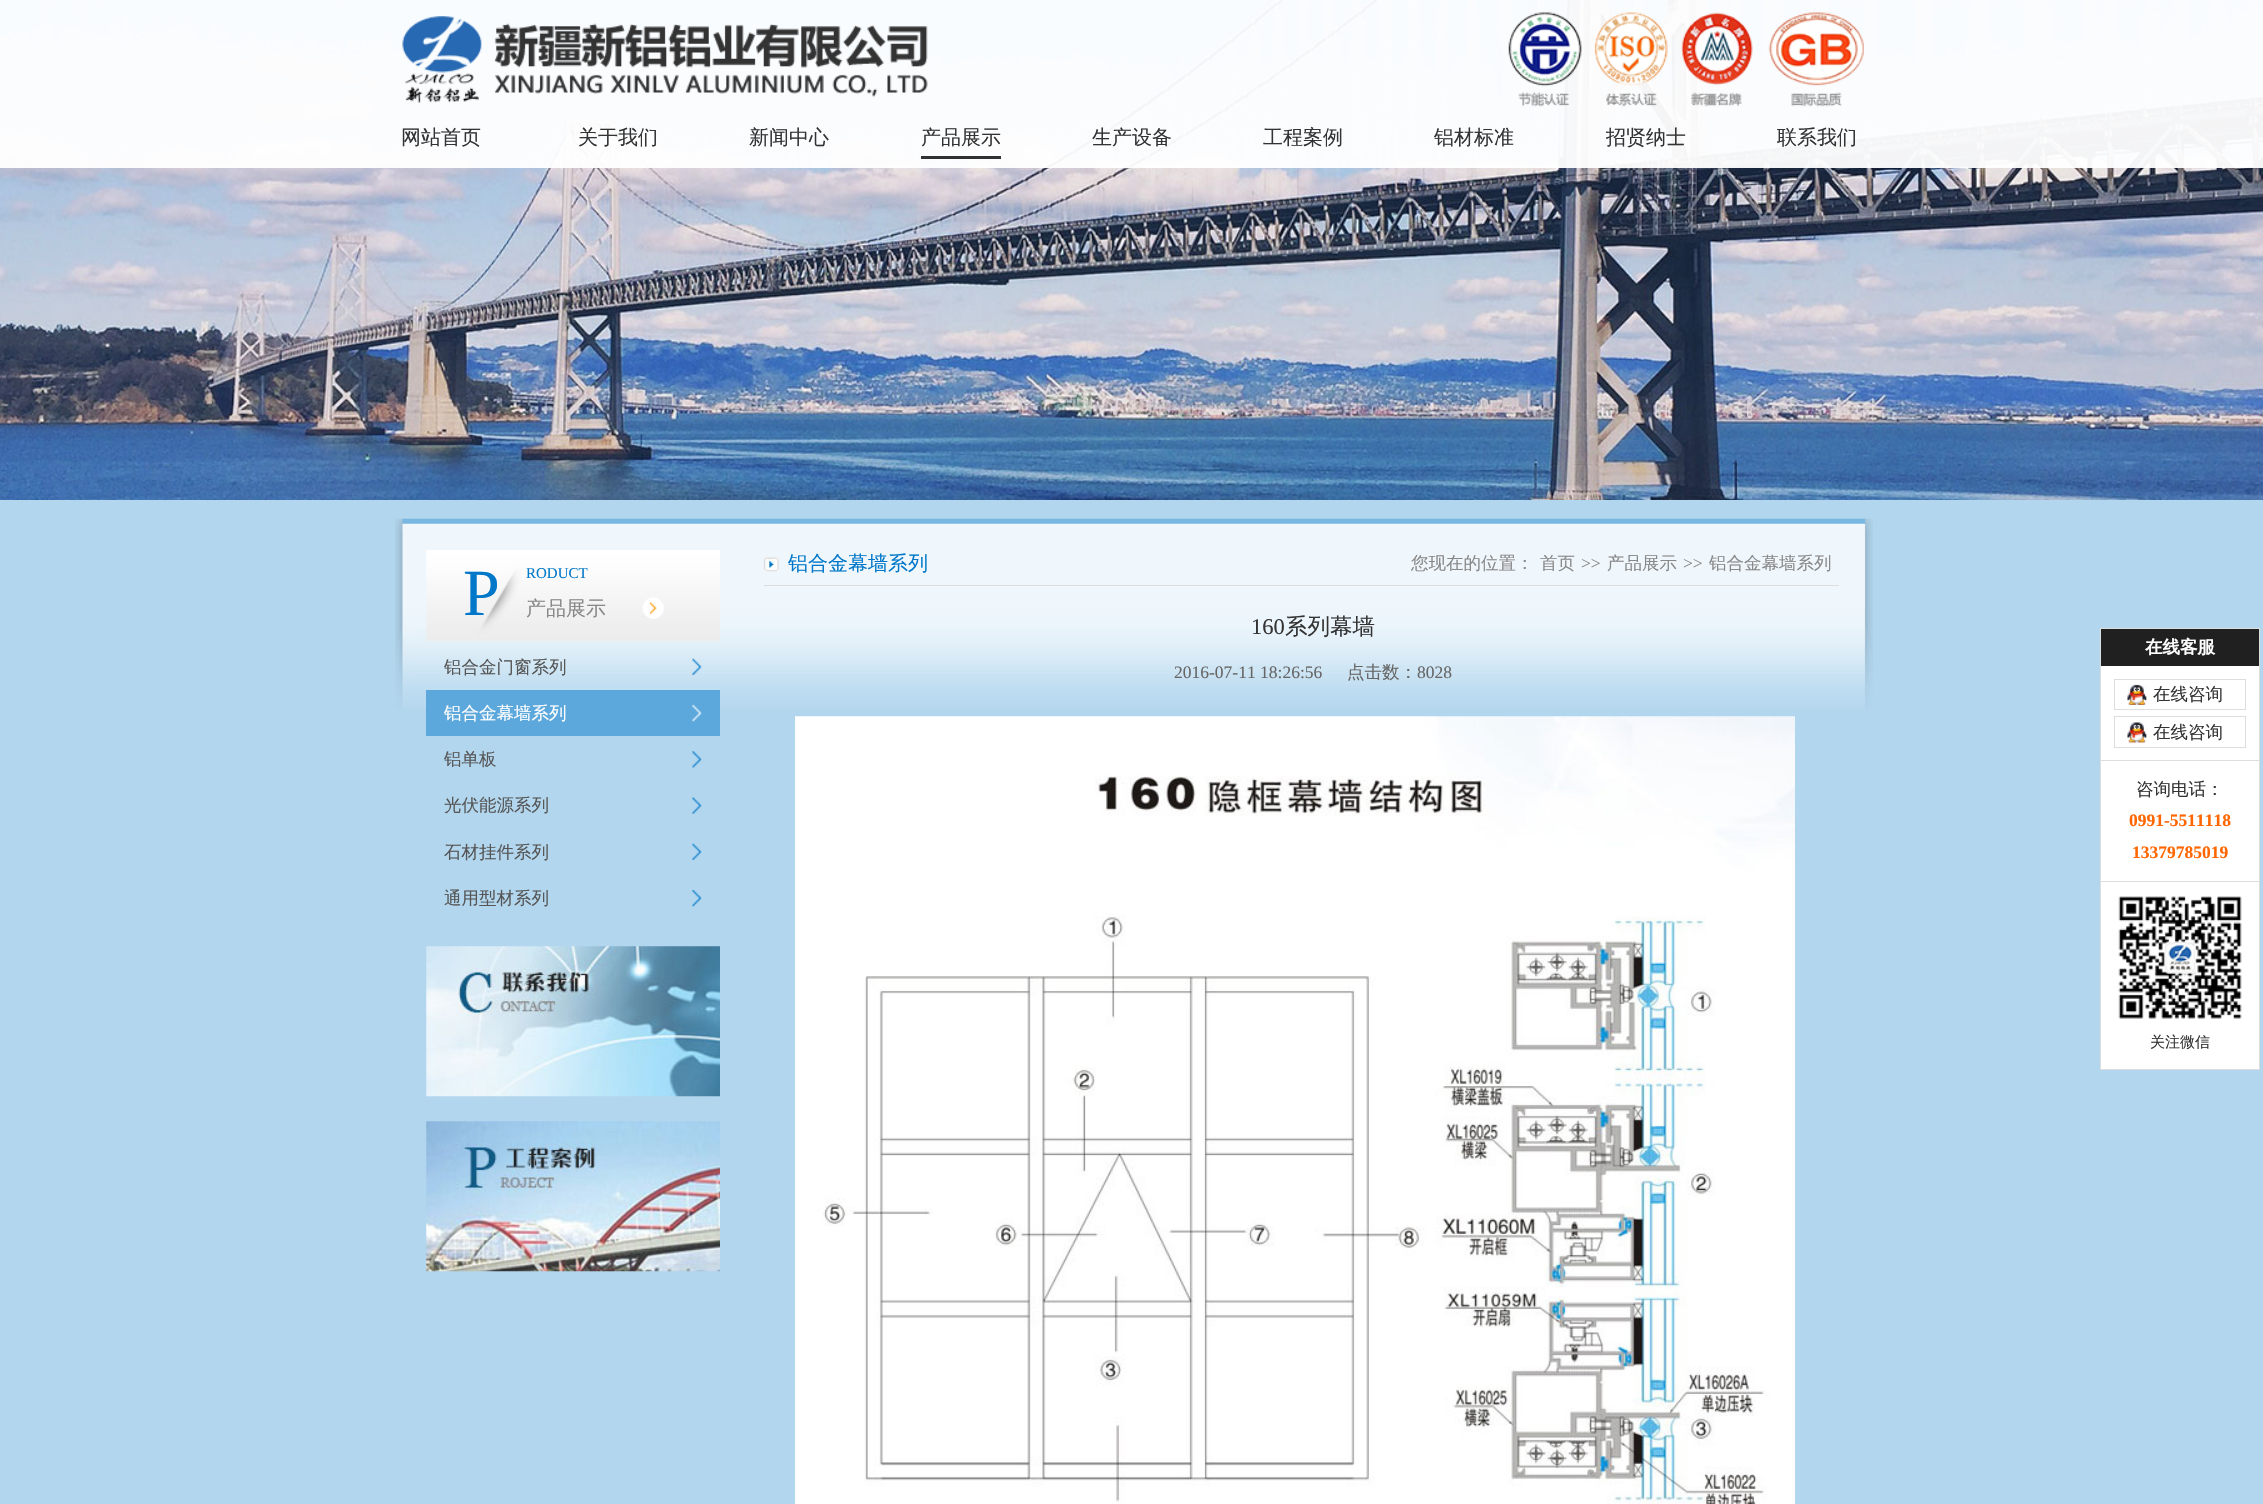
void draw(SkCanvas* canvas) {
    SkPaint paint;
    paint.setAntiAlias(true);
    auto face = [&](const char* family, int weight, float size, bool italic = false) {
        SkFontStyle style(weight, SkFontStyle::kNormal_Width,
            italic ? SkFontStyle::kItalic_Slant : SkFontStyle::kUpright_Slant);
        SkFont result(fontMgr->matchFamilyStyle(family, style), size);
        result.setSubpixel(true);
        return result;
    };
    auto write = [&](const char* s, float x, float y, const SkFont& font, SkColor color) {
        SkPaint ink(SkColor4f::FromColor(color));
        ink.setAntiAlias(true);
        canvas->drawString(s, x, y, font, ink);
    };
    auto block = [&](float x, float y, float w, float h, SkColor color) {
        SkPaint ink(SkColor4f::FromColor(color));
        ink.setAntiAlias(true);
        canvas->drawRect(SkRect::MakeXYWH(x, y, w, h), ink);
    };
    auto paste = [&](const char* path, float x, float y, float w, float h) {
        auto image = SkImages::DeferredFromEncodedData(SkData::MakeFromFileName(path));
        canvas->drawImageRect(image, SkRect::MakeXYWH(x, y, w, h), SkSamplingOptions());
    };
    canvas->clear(SK_ColorWHITE);
    paste("pic1.png", 0, 0, 2263, 500);
    block(0, 0, 2263, 168, SkColorSetARGB(242, 255, 255, 255));
    paste("pic2.png", 402, 16, 526, 87);
    paste("pic3.png", 1508, 12, 356, 95);
    auto kFont1 = face("WenQuanYi Zen Hei", 500, 20);
    write("网站首页", 401, 144, kFont1, SkColorSetRGB(51, 51, 51));
    write("关于我们", 578, 144, kFont1, SkColorSetRGB(51, 51, 51));
    write("新闻中心", 749, 144, kFont1, SkColorSetRGB(51, 51, 51));
    block(921, 156, 80, 3, SkColorSetRGB(47, 49, 50));
    write("产品展示", 921, 144, kFont1, SkColorSetRGB(51, 51, 51));
    write("生产设备", 1092, 144, kFont1, SkColorSetRGB(51, 51, 51));
    write("工程案例", 1263, 144, kFont1, SkColorSetRGB(51, 51, 51));
    write("铝材标准", 1434, 144, kFont1, SkColorSetRGB(51, 51, 51));
    write("招贤纳士", 1606, 144, kFont1, SkColorSetRGB(51, 51, 51));
    write("联系我们", 1777, 144, kFont1, SkColorSetRGB(51, 51, 51));
    block(0, 500, 2263, 1004, SkColorSetRGB(178, 214, 238));
    paste("pic4.png", 395, 518, 1478, 191);
    paste("pic5.png", 426, 550, 294, 91);
    auto kFont2 = face("Liberation Serif", 400, 66);
    write("P", 463, 615, kFont2, SkColorSetRGB(0, 119, 200));
    auto kFont3 = face("Liberation Serif", 400, 15);
    write("RODUCT", 526, 578, kFont3, SkColorSetRGB(0, 119, 200));
    paste("pic6.png", 642, 597, 22, 22);
    write("产品展示", 526, 615, kFont1, SkColorSetRGB(136, 136, 136));
    paste("pic7.png", 692, 658, 10, 17);
    auto kFont4 = face("WenQuanYi Zen Hei", 500, 17.5f);
    write("铝合金门窗系列", 444, 673, kFont4, SkColorSetRGB(85, 85, 85));
    block(426, 690, 294, 46, SkColorSetRGB(92, 168, 220));
    paste("pic8.png", 692, 705, 10, 17);
    write("铝合金幕墙系列", 444, 719, kFont4, SK_ColorWHITE);
    paste("pic9.png", 692, 751, 10, 17);
    write("铝单板", 444, 765, kFont4, SkColorSetRGB(85, 85, 85));
    paste("pic10.png", 692, 797, 10, 17);
    write("光伏能源系列", 444, 811, kFont4, SkColorSetRGB(85, 85, 85));
    paste("pic11.png", 692, 843, 10, 17);
    write("石材挂件系列", 444, 858, kFont4, SkColorSetRGB(85, 85, 85));
    paste("pic12.png", 692, 890, 10, 17);
    write("通用型材系列", 444, 904, kFont4, SkColorSetRGB(85, 85, 85));
    paste("pic13.png", 426, 946, 294, 151);
    paste("pic14.png", 426, 1121, 294, 151);
    block(764, 585, 1075, 1, SkColorSetRGB(221, 221, 221));
    paste("pic15.png", 763, 557, 16, 15);
    write("铝合金幕墙系列", 788, 570, kFont1, SkColorSetRGB(0, 119, 200));
    write("您现在的位置：", 1411, 569, kFont4, SkColorSetRGB(136, 136, 136));
    write("首页", 1540, 569, kFont4, SkColorSetRGB(136, 136, 136));
    auto kFont5 = face("Liberation Serif", 400, 17.5f);
    write(">>", 1581, 569, kFont5, SkColorSetRGB(136, 136, 136));
    write("产品展示", 1607, 569, kFont4, SkColorSetRGB(136, 136, 136));
    write(">>", 1683, 569, kFont5, SkColorSetRGB(136, 136, 136));
    write("铝合金幕墙系列", 1709, 569, kFont4, SkColorSetRGB(136, 136, 136));
    auto kFont6 = face("Liberation Serif", 400, 22.5f);
    write("160", 1251, 634, kFont6, SkColorSetRGB(51, 51, 51));
    auto kFont7 = face("WenQuanYi Zen Hei", 500, 22.5f);
    write("系列幕墙", 1285, 634, kFont7, SkColorSetRGB(51, 51, 51));
    write("2016-07-11 18:26:56", 1174, 678, kFont5, SkColorSetRGB(102, 102, 102));
    write("点击数：", 1347, 678, kFont4, SkColorSetRGB(102, 102, 102));
    write("8028", 1417, 678, kFont5, SkColorSetRGB(102, 102, 102));
    paste("pic16.png", 795, 716, 1000, 788);
    block(2101, 666, 158, 403, SK_ColorWHITE);
    block(2101, 629, 158, 37, SkColorSetRGB(32, 32, 32));
    block(2100, 628, 160, 1, SkColorSetRGB(221, 221, 221));
    block(2259, 628, 1, 442, SkColorSetRGB(221, 221, 221));
    block(2100, 628, 1, 38, SkColorSetRGB(221, 221, 221));
    auto kFont8 = face("WenQuanYi Zen Hei", 700, 17.5f);
    write("在线客服", 2145, 653, kFont8, SK_ColorWHITE);
    block(2100, 760, 160, 1, SkColorSetRGB(221, 221, 221));
    block(2100, 666, 1, 95, SkColorSetRGB(221, 221, 221));
    paste("pic17.png", 2127, 684, 20, 21);
    paint.setStyle(SkPaint::kStroke_Style);
    paint.setStrokeWidth(1);
    paint.setColor(SkColorSetRGB(221, 221, 221));
    canvas->drawRect(SkRect::MakeXYWH(2114.5f, 679.5f, 131, 30), paint);
    write("在线咨询", 2153, 700, kFont4, SkColorSetRGB(51, 51, 51));
    paste("pic18.png", 2127, 722, 20, 21);
    canvas->drawRect(SkRect::MakeXYWH(2114.5f, 716.5f, 131, 31), paint);
    write("在线咨询", 2153, 738, kFont4, SkColorSetRGB(51, 51, 51));
    block(2100, 881, 160, 1, SkColorSetRGB(221, 221, 221));
    block(2100, 761, 1, 122, SkColorSetRGB(221, 221, 221));
    write("咨询电话：", 2136, 795, kFont4, SkColorSetRGB(51, 51, 51));
    auto kFont9 = face("Liberation Serif", 700, 17.5f);
    write("0991-5511118", 2129, 826, kFont9, SkColorSetRGB(255, 102, 0));
    write("13379785019", 2132, 858, kFont9, SkColorSetRGB(255, 102, 0));
    block(2100, 1069, 160, 1, SkColorSetRGB(221, 221, 221));
    block(2100, 883, 1, 187, SkColorSetRGB(221, 221, 221));
    paste("pic19.png", 2118, 896, 124, 123);
    auto kFont10 = face("WenQuanYi Zen Hei", 500, 15);
    write("关注微信", 2150, 1047, kFont10, SkColorSetRGB(51, 51, 51));
}
